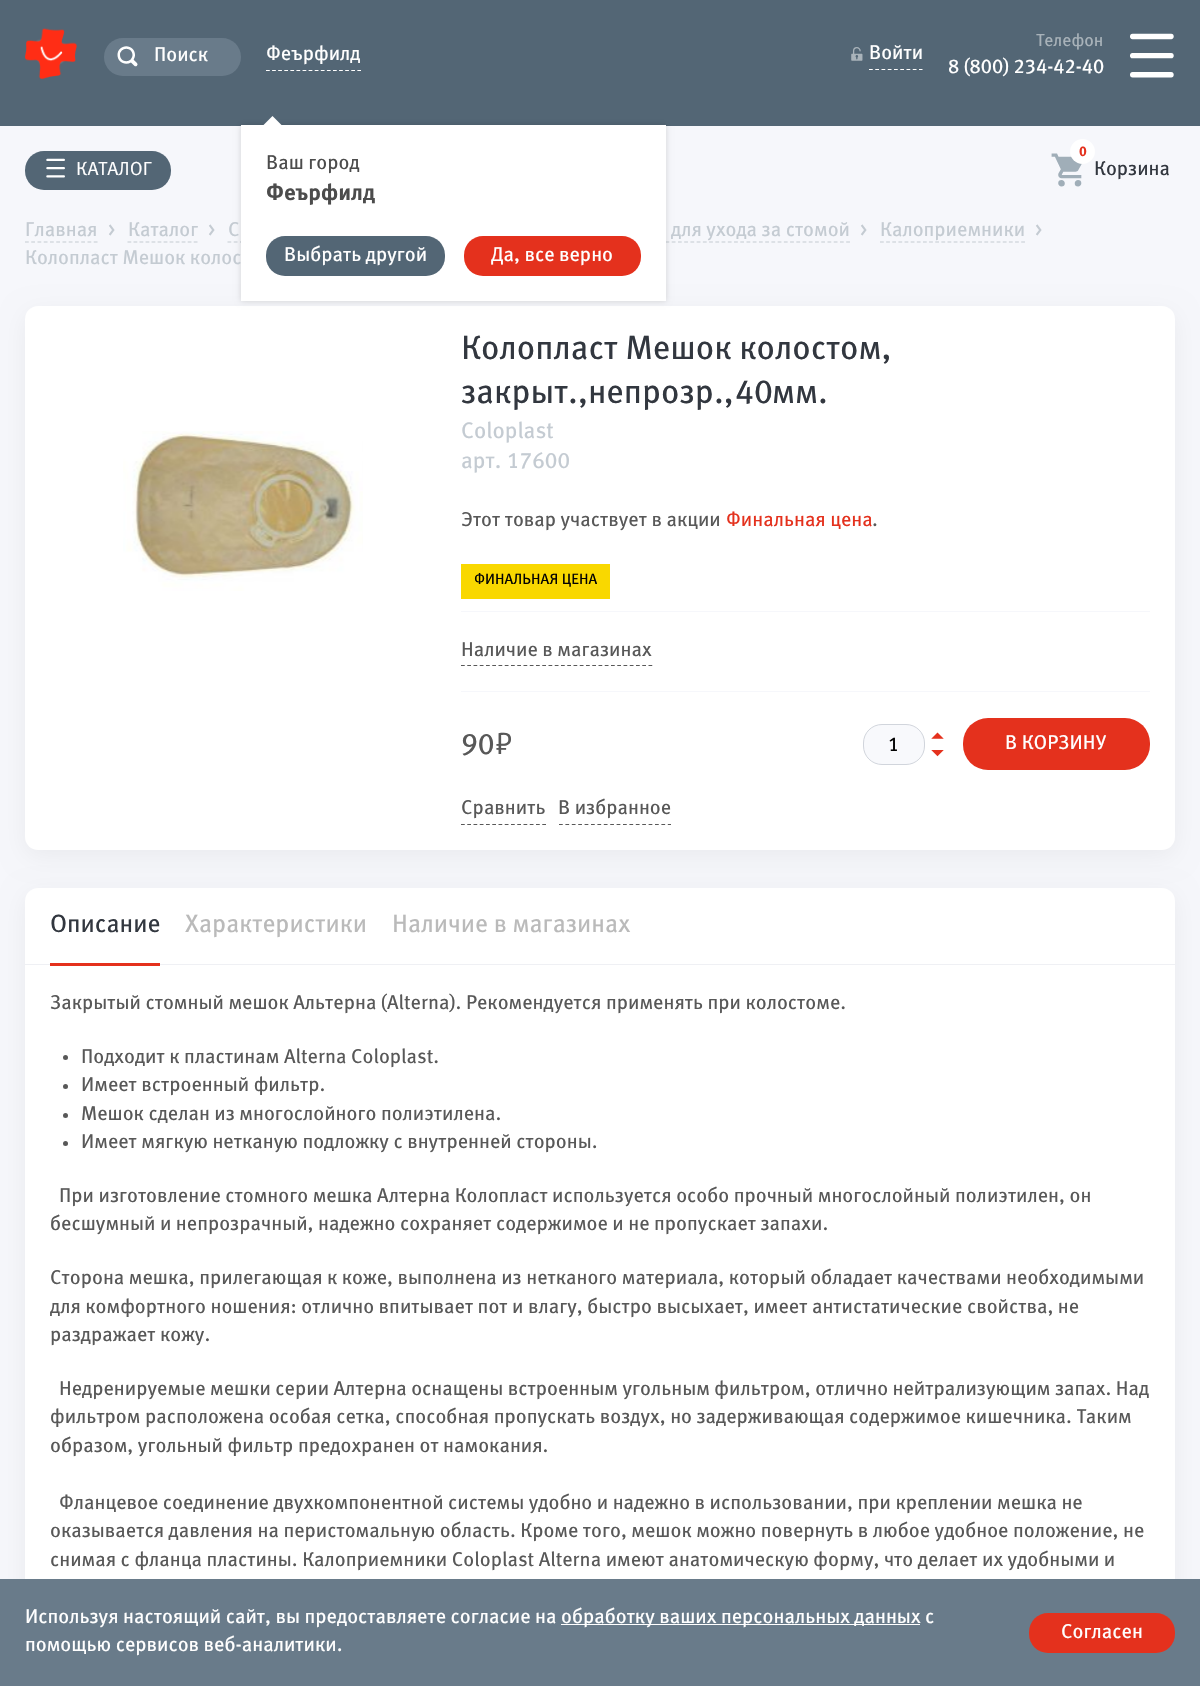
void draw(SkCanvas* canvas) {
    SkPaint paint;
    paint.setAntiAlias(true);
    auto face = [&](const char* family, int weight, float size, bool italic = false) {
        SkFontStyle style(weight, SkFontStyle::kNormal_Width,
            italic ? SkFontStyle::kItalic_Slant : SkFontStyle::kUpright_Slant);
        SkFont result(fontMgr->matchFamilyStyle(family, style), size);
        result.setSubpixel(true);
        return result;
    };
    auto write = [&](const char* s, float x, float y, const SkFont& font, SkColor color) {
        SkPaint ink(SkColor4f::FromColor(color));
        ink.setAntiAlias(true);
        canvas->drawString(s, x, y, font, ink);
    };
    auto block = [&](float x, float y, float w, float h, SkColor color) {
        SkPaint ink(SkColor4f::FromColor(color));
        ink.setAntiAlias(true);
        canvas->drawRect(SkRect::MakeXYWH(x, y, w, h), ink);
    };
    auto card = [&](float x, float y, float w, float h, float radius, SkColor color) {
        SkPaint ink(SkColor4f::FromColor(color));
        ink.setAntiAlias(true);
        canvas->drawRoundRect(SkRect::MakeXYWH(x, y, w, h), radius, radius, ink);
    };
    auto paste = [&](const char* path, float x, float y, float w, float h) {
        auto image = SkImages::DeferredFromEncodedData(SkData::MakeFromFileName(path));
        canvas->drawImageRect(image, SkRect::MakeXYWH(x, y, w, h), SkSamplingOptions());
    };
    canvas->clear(SkColorSetRGB(246, 247, 251));
    card(25, 151, 146, 39, 19, SkColorSetRGB(83, 102, 117));
    paste("pic1.png", 46, 158, 19, 20);
    auto kFont1 = face("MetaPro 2", 400, 19);
    write("КАТАЛОГ", 76, 175, kFont1, SK_ColorWHITE);
    block(0, 0, 1200, 126, SkColorSetRGB(83, 102, 117));
    paste("pic2.png", 25, 28, 52, 51);
    card(104, 38, 137, 38, 19, SkColorSetRGB(105, 123, 138));
    paste("pic3.png", 117, 46, 21, 21);
    auto kFont2 = face("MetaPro", 400, 20);
    write("Поиск", 154, 61, kFont2, SK_ColorWHITE);
    paint.setStyle(SkPaint::kStroke_Style);
    paint.setStrokeWidth(1.2f);
    paint.setColor(SK_ColorWHITE);
    paint.setPathEffect(SkDashPathEffect::Make({{3.75f, 2.34f}}, 0));
    canvas->drawPath(SkPathBuilder().moveTo(266, 70.5f).lineTo(361, 70.5f).detach(), paint);
    paint.setPathEffect(nullptr);
    write("Феърфилд", 266, 60, kFont2, SK_ColorWHITE);
    paint.setColor(SkColorSetRGB(196, 203, 210));
    paint.setPathEffect(SkDashPathEffect::Make({{3.75f, 2.48f}}, 0));
    canvas->drawPath(SkPathBuilder().moveTo(227.5f, 242).lineTo(486, 242).detach(), paint);
    paint.setPathEffect(nullptr);
    paint.setPathEffect(SkDashPathEffect::Make({{3.75f, 2.48f}}, 0));
    canvas->drawPath(SkPathBuilder().moveTo(516, 242).lineTo(850, 242).detach(), paint);
    paint.setPathEffect(nullptr);
    paint.setStyle(SkPaint::kFill_Style);
    paint.setColor(SkColorSetARGB(13, 0, 0, 0));
    paint.setMaskFilter(SkMaskFilter::MakeBlur(kNormal_SkBlurStyle, 12.5f));
    canvas->drawRoundRect(SkRect::MakeXYWH(25, 313, 1150, 543), 13, 13, paint);
    paint.setMaskFilter(nullptr);
    card(25, 306, 1150, 544, 13, SK_ColorWHITE);
    paint.setColor(SkColorSetARGB(38, 0, 0, 0));
    paint.setMaskFilter(SkMaskFilter::MakeBlur(kNormal_SkBlurStyle, 3));
    canvas->drawRect(SkRect::MakeXYWH(241, 125, 425, 176), paint);
    paint.setMaskFilter(nullptr);
    block(241, 125, 425, 176, SK_ColorWHITE);
    paint.setColor(SK_ColorWHITE);
    canvas->drawPath(SkPathBuilder().moveTo(272.5f, 116).lineTo(281.5f, 125).lineTo(272.5f, 133.5f).lineTo(263.5f, 125).close().detach(), paint);
    write("Ваш город", 266, 169, kFont2, SkColorSetRGB(76, 76, 76));
    auto kFont3 = face("MetaPro", 700, 22.5f);
    write("Феърфилд", 266, 200, kFont3, SkColorSetRGB(76, 76, 76));
    card(266, 236, 179, 40, 19, SkColorSetRGB(83, 102, 117));
    write("Выбрать другой", 284, 261, kFont2, SK_ColorWHITE);
    card(464, 236, 177, 40, 19, SkColorSetRGB(228, 49, 29));
    write("Да, все верно", 491, 261, kFont2, SK_ColorWHITE);
    paint.setStyle(SkPaint::kStroke_Style);
    paint.setPathEffect(SkDashPathEffect::Make({{3.75f, 2.5f}}, 0));
    canvas->drawPath(SkPathBuilder().moveTo(869, 69.5f).lineTo(922.5f, 69.5f).detach(), paint);
    paint.setPathEffect(nullptr);
    paste("pic4.png", 851, 47, 12, 14);
    write("Войти", 869, 59, kFont2, SK_ColorWHITE);
    auto kFont4 = face("MetaPro", 400, 17.5f);
    write("Телефон", 1036, 46, kFont4, SkColorSetRGB(168, 178, 185));
    auto kFont5 = face("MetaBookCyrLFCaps", 400, 20);
    write("8 (800) 234-42-40", 948, 73, kFont5, SK_ColorWHITE);
    paste("pic5.png", 1130, 33, 44, 45);
    paste("pic6.png", 1051, 153, 32, 34);
    paint.setStyle(SkPaint::kFill_Style);
    canvas->drawCircle(1082.5f, 151.5f, 12.5f, paint);
    auto kFont6 = face("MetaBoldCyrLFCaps", 700, 14);
    write("0", 1079, 156, kFont6, SkColorSetRGB(228, 49, 29));
    write("Корзина", 1094, 175, kFont2, SkColorSetRGB(50, 55, 63));
    paint.setStyle(SkPaint::kStroke_Style);
    paint.setColor(SkColorSetRGB(196, 203, 210));
    paint.setPathEffect(SkDashPathEffect::Make({{3.75f, 2.5f}}, 0));
    canvas->drawPath(SkPathBuilder().moveTo(25, 242).lineTo(97.5f, 242).detach(), paint);
    paint.setPathEffect(nullptr);
    write("Главная", 25, 236, kFont2, SkColorSetRGB(196, 203, 210));
    write(">", 108, 236, kFont2, SkColorSetRGB(196, 203, 210));
    paint.setPathEffect(SkDashPathEffect::Make({{3.75f, 2.27f}}, 0));
    canvas->drawPath(SkPathBuilder().moveTo(127.5f, 242).lineTo(197.5f, 242).detach(), paint);
    paint.setPathEffect(nullptr);
    write("Каталог", 128, 236, kFont2, SkColorSetRGB(196, 203, 210));
    write(">", 208, 236, kFont2, SkColorSetRGB(196, 203, 210));
    write("С", 228, 236, kFont2, SkColorSetRGB(196, 203, 210));
    write("для ухода за стомой", 671, 236, kFont2, SkColorSetRGB(196, 203, 210));
    write(">", 860, 236, kFont2, SkColorSetRGB(196, 203, 210));
    paint.setPathEffect(SkDashPathEffect::Make({{3.75f, 2.39f}}, 0));
    canvas->drawPath(SkPathBuilder().moveTo(880, 242).lineTo(1025, 242).detach(), paint);
    paint.setPathEffect(nullptr);
    write("Калоприемники", 880, 236, kFont2, SkColorSetRGB(196, 203, 210));
    write(">", 1035, 236, kFont2, SkColorSetRGB(196, 203, 210));
    write("Колопласт Мешок колос", 25, 264, kFont2, SkColorSetRGB(196, 203, 210));
    paste("pic7.png", 123, 431, 240, 160);
    auto kFont7 = face("MetaPro", 400, 33.75f);
    write("Колопласт Мешок колостом,", 461, 359, kFont7, SkColorSetRGB(50, 55, 63));
    write("закрыт.,непрозр.,", 461, 403, kFont7, SkColorSetRGB(50, 55, 63));
    auto kFont8 = face("MetaBookCyrLFCaps", 400, 33.75f);
    write("40", 735, 403, kFont8, SkColorSetRGB(50, 55, 63));
    write("мм.", 772, 403, kFont7, SkColorSetRGB(50, 55, 63));
    auto kFont9 = face("MetaPro", 400, 22.5f);
    write("Coloplast", 461, 438, kFont9, SkColorSetRGB(196, 203, 210));
    write("арт.", 461, 468, kFont9, SkColorSetRGB(196, 203, 210));
    auto kFont10 = face("MetaBookCyrLFCaps", 400, 22.5f);
    write("17600", 507, 468, kFont10, SkColorSetRGB(196, 203, 210));
    write("Этот товар участвует в акции", 461, 526, kFont2, SkColorSetRGB(88, 88, 88));
    write("Финальная цена", 726, 526, kFont2, SkColorSetRGB(228, 49, 29));
    write(".", 872, 526, kFont2, SkColorSetRGB(88, 88, 88));
    block(461, 564, 149, 35, SkColorSetRGB(249, 216, 0));
    auto kFont11 = face("MetaPro", 400, 15);
    write("ФИНАЛЬНАЯ ЦЕНА", 474, 584, kFont11, SkColorSetRGB(3, 3, 3));
    block(461, 611, 689, 1, SkColorSetRGB(246, 247, 251));
    paint.setColor(SkColorSetRGB(88, 88, 88));
    paint.setPathEffect(SkDashPathEffect::Make({{3.75f, 2.5f}}, 0));
    canvas->drawPath(SkPathBuilder().moveTo(461, 665.5f).lineTo(652.5f, 665.5f).detach(), paint);
    paint.setPathEffect(nullptr);
    write("Наличие в магазинах", 461, 656, kFont2, SkColorSetRGB(88, 88, 88));
    block(461, 691, 689, 1, SkColorSetRGB(246, 247, 251));
    auto kFont12 = face("MetaBookCyrLFCaps", 400, 30);
    write("90", 461, 754, kFont12, SkColorSetRGB(88, 88, 88));
    auto kFont13 = face("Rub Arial", 400, 30);
    write("руб.", 491, 754, kFont13, SkColorSetRGB(88, 88, 88));
    paste("pic8.png", 931, 732, 13, 7);
    paint.setStyle(SkPaint::kFill_Style);
    paint.setColor(SkColorSetRGB(248, 249, 252));
    canvas->drawRoundRect(SkRect::MakeXYWH(863.5f, 724.5f, 61, 40), 18.5f, 18.5f, paint);
    paint.setStyle(SkPaint::kStroke_Style);
    paint.setStrokeWidth(1);
    paint.setColor(SkColorSetRGB(209, 213, 220));
    canvas->drawRoundRect(SkRect::MakeXYWH(863.5f, 724.5f, 61, 40), 18.5f, 18.5f, paint);
    write("1", 888, 751, kFont5, SkColorSetRGB(3, 3, 3));
    paste("pic9.png", 931, 750, 13, 7);
    card(963, 718, 187, 52, 25, SkColorSetRGB(228, 49, 29));
    write("В КОРЗИНУ", 1005, 749, kFont2, SK_ColorWHITE);
    canvas->save();
    canvas->clipRect(SkRect::MakeXYWH(461, 331, 689, 494));
    paint.setStrokeWidth(1.2f);
    paint.setColor(SkColorSetRGB(88, 88, 88));
    paint.setPathEffect(SkDashPathEffect::Make({{3.75f, 2.5f}}, 0));
    canvas->drawPath(SkPathBuilder().moveTo(461, 824.5f).lineTo(546, 824.5f).detach(), paint);
    paint.setPathEffect(nullptr);
    canvas->restore();
    write("Сравнить", 461, 814, kFont2, SkColorSetRGB(88, 88, 88));
    canvas->save();
    canvas->clipRect(SkRect::MakeXYWH(461, 331, 689, 494));
    paint.setPathEffect(SkDashPathEffect::Make({{3.75f, 2.65f}}, 0));
    canvas->drawPath(SkPathBuilder().moveTo(559, 824.5f).lineTo(671, 824.5f).detach(), paint);
    paint.setPathEffect(nullptr);
    canvas->restore();
    write("В избранное", 558, 814, kFont2, SkColorSetRGB(88, 88, 88));
    paint.setStyle(SkPaint::kFill_Style);
    paint.setColor(SkColorSetARGB(13, 0, 0, 0));
    paint.setMaskFilter(SkMaskFilter::MakeBlur(kNormal_SkBlurStyle, 12.5f));
    canvas->drawRoundRect(SkRect::MakeXYWH(25, 894, 1150, 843), 13, 13, paint);
    paint.setMaskFilter(nullptr);
    card(25, 888, 1150, 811, 13, SK_ColorWHITE);
    block(25, 964, 1150, 1, SkColorSetRGB(239, 240, 244));
    block(50, 963, 110, 3, SkColorSetRGB(228, 49, 29));
    auto kFont14 = face("MetaPro", 400, 25);
    write("Описание", 50, 932, kFont14, SkColorSetRGB(50, 55, 63));
    write("Характеристики", 185, 932, kFont14, SkColorSetRGB(186, 186, 186));
    write("Наличие в магазинах", 392, 932, kFont14, SkColorSetRGB(186, 186, 186));
    write("Закрытый стомный мешок Альтерна (Alterna). Рекомендуется применять при колостоме.", 50, 1009, kFont2, SkColorSetRGB(88, 88, 88));
    paint.setColor(SkColorSetRGB(88, 88, 88));
    canvas->drawCircle(65.5f, 1057.5f, 2.5f, paint);
    write("Подходит к пластинам Alterna Coloplast.", 81, 1063, kFont2, SkColorSetRGB(88, 88, 88));
    canvas->drawCircle(65.5f, 1086.5f, 2.5f, paint);
    write("Имеет встроенный фильтр.", 81, 1091, kFont2, SkColorSetRGB(88, 88, 88));
    canvas->drawCircle(65.5f, 1115.5f, 2.5f, paint);
    write("Мешок cделан из многослойного полиэтилена.", 81, 1120, kFont2, SkColorSetRGB(88, 88, 88));
    canvas->drawCircle(65.5f, 1143.5f, 2.5f, paint);
    write("Имеет мягкую нетканую подложку c внутренней стороны.", 81, 1148, kFont2, SkColorSetRGB(88, 88, 88));
    write("При изготовление стомного мешка Алтерна Колопласт используется особо прочный многослойный полиэтилен, он", 59, 1202, kFont2, SkColorSetRGB(88, 88, 88));
    write("бесшумный и непрозрачный, надежно сохраняет содержимое и не пропускает запахи.", 50, 1230, kFont2, SkColorSetRGB(88, 88, 88));
    write("Сторона мешка, прилегающая к коже, выполнена из нетканого материала, который обладает качествами необходимыми", 50, 1284, kFont2, SkColorSetRGB(88, 88, 88));
    write("для комфортного ношения: отлично впитывает пот и влагу, быстро высыхает, имеет антистатические свойства, не", 50, 1313, kFont2, SkColorSetRGB(88, 88, 88));
    write("раздражает кожу.", 50, 1341, kFont2, SkColorSetRGB(88, 88, 88));
    write("Недренируемые мешки серии Алтерна оснащены встроенным угольным фильтром, отлично нейтрализующим запах. Над", 59, 1395, kFont2, SkColorSetRGB(88, 88, 88));
    write("фильтром расположена особая сетка, способная пропускать воздух, но задерживающая содержимое кишечника. Таким", 50, 1423, kFont2, SkColorSetRGB(88, 88, 88));
    write("образом, угольный фильтр предохранен от намокания.", 50, 1452, kFont2, SkColorSetRGB(88, 88, 88));
    write("Фланцевое соединение двухкомпонентной системы удобно и надежно в использовании, при креплении мешка не", 59, 1509, kFont2, SkColorSetRGB(88, 88, 88));
    write("оказывается давления на перистомальную область. Кроме того, мешок можно повернуть в любое удобное положение, не", 50, 1537, kFont2, SkColorSetRGB(88, 88, 88));
    write("снимая с фланца пластины. Калоприемники Coloplast Alterna имеют анатомическую форму, что делает их удобными и", 50, 1566, kFont2, SkColorSetRGB(88, 88, 88));
    block(0, 1579, 1200, 107, SkColorSetRGB(105, 123, 138));
    write("Используя настоящий сайт, вы предоставляете согласие на", 25, 1623, kFont2, SK_ColorWHITE);
    block(561, 1624, 359, 1, SK_ColorWHITE);
    write("обработку ваших персональных данных с", 561, 1623, kFont2, SK_ColorWHITE);
    write("помощью сервисов веб-аналитики.", 25, 1651, kFont2, SK_ColorWHITE);
    card(1029, 1613, 146, 40, 19, SkColorSetRGB(228, 49, 29));
    write("Согласен", 1061, 1638, kFont2, SK_ColorWHITE);
}
